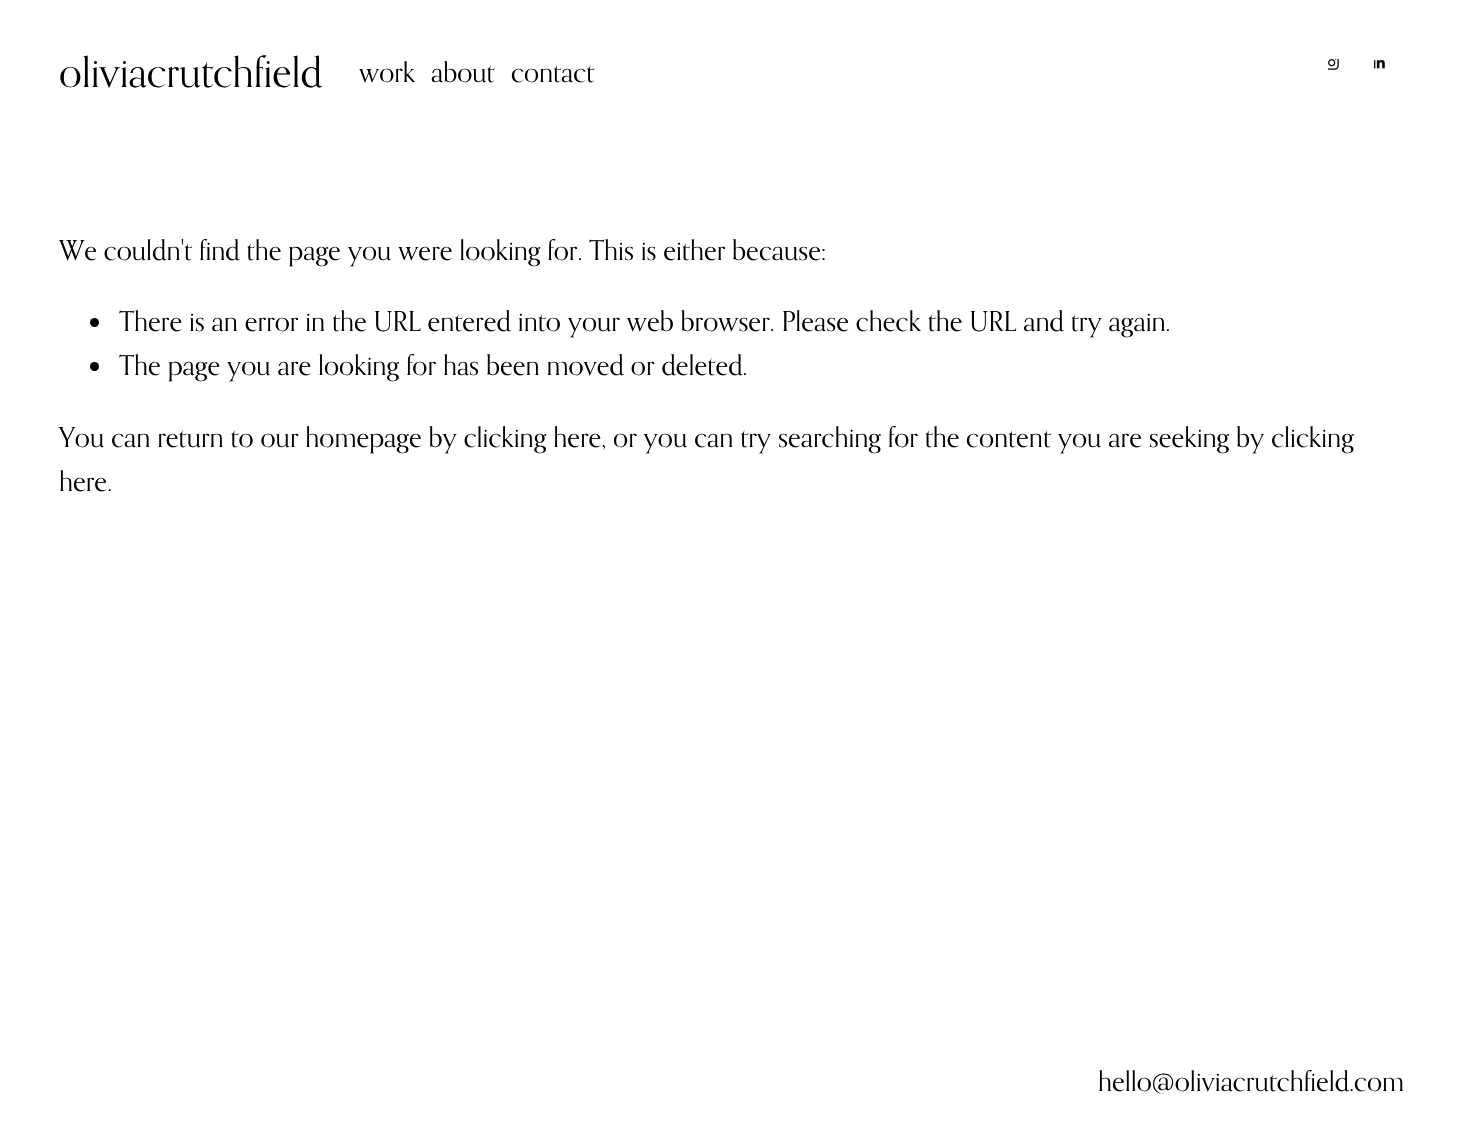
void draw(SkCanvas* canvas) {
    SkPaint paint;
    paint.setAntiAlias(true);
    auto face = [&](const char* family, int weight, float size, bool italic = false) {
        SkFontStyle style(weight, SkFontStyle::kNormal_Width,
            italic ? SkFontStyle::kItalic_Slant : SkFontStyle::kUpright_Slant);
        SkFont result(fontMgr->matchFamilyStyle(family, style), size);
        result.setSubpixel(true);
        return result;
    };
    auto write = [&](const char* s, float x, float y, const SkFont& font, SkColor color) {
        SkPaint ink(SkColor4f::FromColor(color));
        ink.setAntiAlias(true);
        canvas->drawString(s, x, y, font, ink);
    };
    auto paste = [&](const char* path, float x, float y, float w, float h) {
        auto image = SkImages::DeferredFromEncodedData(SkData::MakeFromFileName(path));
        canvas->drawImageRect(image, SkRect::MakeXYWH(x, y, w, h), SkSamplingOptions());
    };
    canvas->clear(SK_ColorWHITE);
    auto kFont1 = face("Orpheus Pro", 400, 41.5f);
    write("oliviacrutchfield", 59, 87, kFont1, SK_ColorBLACK);
    auto kFont2 = face("Orpheus Pro", 400, 27.5f);
    write("work", 359, 82, kFont2, SK_ColorBLACK);
    write("about", 431, 82, kFont2, SK_ColorBLACK);
    write("contact", 511, 82, kFont2, SK_ColorBLACK);
    paste("pic1.png", 1328, 59, 11, 11);
    paste("pic2.png", 1374, 60, 11, 9);
    write("We couldn't find the page you were looking for. This is either because:", 59, 260, kFont2, SK_ColorBLACK);
    paint.setColor(SK_ColorBLACK);
    canvas->drawCircle(94.5f, 322.5f, 4.5f, paint);
    write("There is an error in the URL entered into your web browser. Please check the URL and try again.", 119, 331, kFont2, SK_ColorBLACK);
    canvas->drawCircle(94.5f, 366.5f, 4.5f, paint);
    write("The page you are looking for has been moved or deleted.", 119, 375, kFont2, SK_ColorBLACK);
    write("You can return to our homepage by clicking here, or you can try searching for the", 59, 447, kFont2, SK_ColorBLACK);
    write("content you are seeking by clicking", 966, 447, kFont2, SK_ColorBLACK);
    write("here.", 59, 491, kFont2, SK_ColorBLACK);
    write("hello@oliviacrutchfield.com", 1098, 1091, kFont2, SK_ColorBLACK);
}
